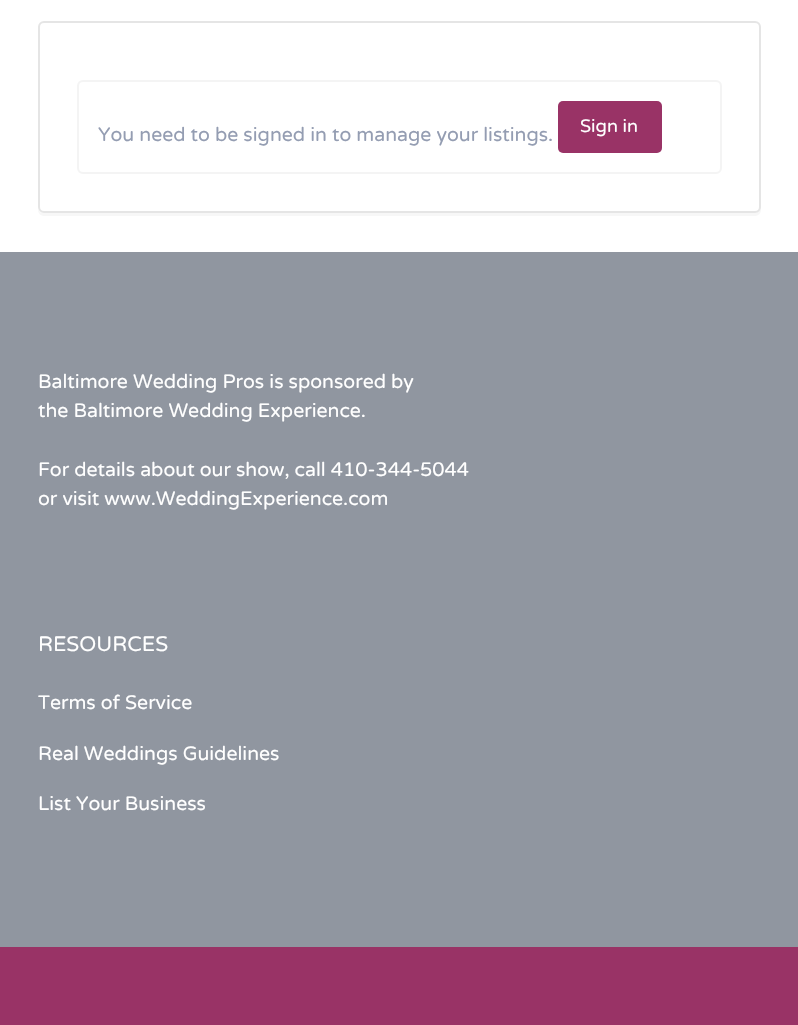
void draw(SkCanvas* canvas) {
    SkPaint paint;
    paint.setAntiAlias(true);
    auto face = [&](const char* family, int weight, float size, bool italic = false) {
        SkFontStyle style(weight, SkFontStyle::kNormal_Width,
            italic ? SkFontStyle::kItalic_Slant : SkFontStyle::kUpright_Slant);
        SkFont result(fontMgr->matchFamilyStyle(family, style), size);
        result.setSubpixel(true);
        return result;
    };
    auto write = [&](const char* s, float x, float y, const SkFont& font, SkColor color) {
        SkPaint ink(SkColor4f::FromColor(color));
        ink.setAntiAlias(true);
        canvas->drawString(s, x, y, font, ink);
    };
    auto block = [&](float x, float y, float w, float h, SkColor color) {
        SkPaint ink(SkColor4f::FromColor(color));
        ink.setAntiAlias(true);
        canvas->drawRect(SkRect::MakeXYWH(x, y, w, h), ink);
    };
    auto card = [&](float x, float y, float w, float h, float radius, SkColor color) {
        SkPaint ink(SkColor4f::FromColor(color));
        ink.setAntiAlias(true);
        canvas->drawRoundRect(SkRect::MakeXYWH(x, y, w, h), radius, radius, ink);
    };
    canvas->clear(SK_ColorWHITE);
    paint.setColor(SkColorSetRGB(247, 247, 247));
    canvas->drawPath(SkPathBuilder().moveTo(38, 209).lineTo(38, 210).cubicTo(38, 213, 41, 216, 44, 216).lineTo(755, 216).cubicTo(758, 216, 761, 213, 761, 210).lineTo(761, 30).lineTo(760, 28).lineTo(760, 207).cubicTo(760, 210, 758, 213, 754, 213).lineTo(44, 213).cubicTo(41, 213, 39, 212, 38, 209).close().detach(), paint);
    paint.setColor(SK_ColorWHITE);
    canvas->drawRoundRect(SkRect::MakeXYWH(39, 22, 721, 190), 5, 5, paint);
    paint.setStyle(SkPaint::kStroke_Style);
    paint.setStrokeWidth(2);
    paint.setColor(SkColorSetRGB(229, 229, 229));
    canvas->drawRoundRect(SkRect::MakeXYWH(39, 22, 721, 190), 5, 5, paint);
    paint.setColor(SkColorSetRGB(244, 244, 244));
    canvas->drawRoundRect(SkRect::MakeXYWH(78, 81, 643, 92), 5, 5, paint);
    auto kFont1 = face("Varela Round", 400, 19.5f);
    write("You need to be signed in to manage your listings.", 98, 141, kFont1, SkColorSetRGB(148, 157, 178));
    card(558, 101, 104, 52, 5, SkColorSetRGB(153, 51, 102));
    auto kFont2 = face("Varela Round", 400, 18);
    write("Sign in", 580, 132, kFont2, SK_ColorWHITE);
    block(0, 252, 798, 695, SkColorSetRGB(144, 150, 160));
    write("Baltimore Wedding Pros is sponsored by", 38, 388, kFont1, SK_ColorWHITE);
    write("the Baltimore Wedding Experience.", 38, 417, kFont1, SK_ColorWHITE);
    write("For details about our show, call 410-344-5044", 38, 476, kFont1, SK_ColorWHITE);
    write("or visit www.WeddingExperience.com", 38, 505, kFont1, SK_ColorWHITE);
    auto kFont3 = face("Varela Round", 400, 21);
    write("RESOURCES", 38, 651, kFont3, SK_ColorWHITE);
    write("Terms of Service", 38, 709, kFont1, SK_ColorWHITE);
    write("Real Weddings Guidelines", 38, 760, kFont1, SK_ColorWHITE);
    write("List Your Business", 38, 810, kFont1, SK_ColorWHITE);
    block(0, 947, 798, 78, SkColorSetRGB(153, 51, 102));
}
